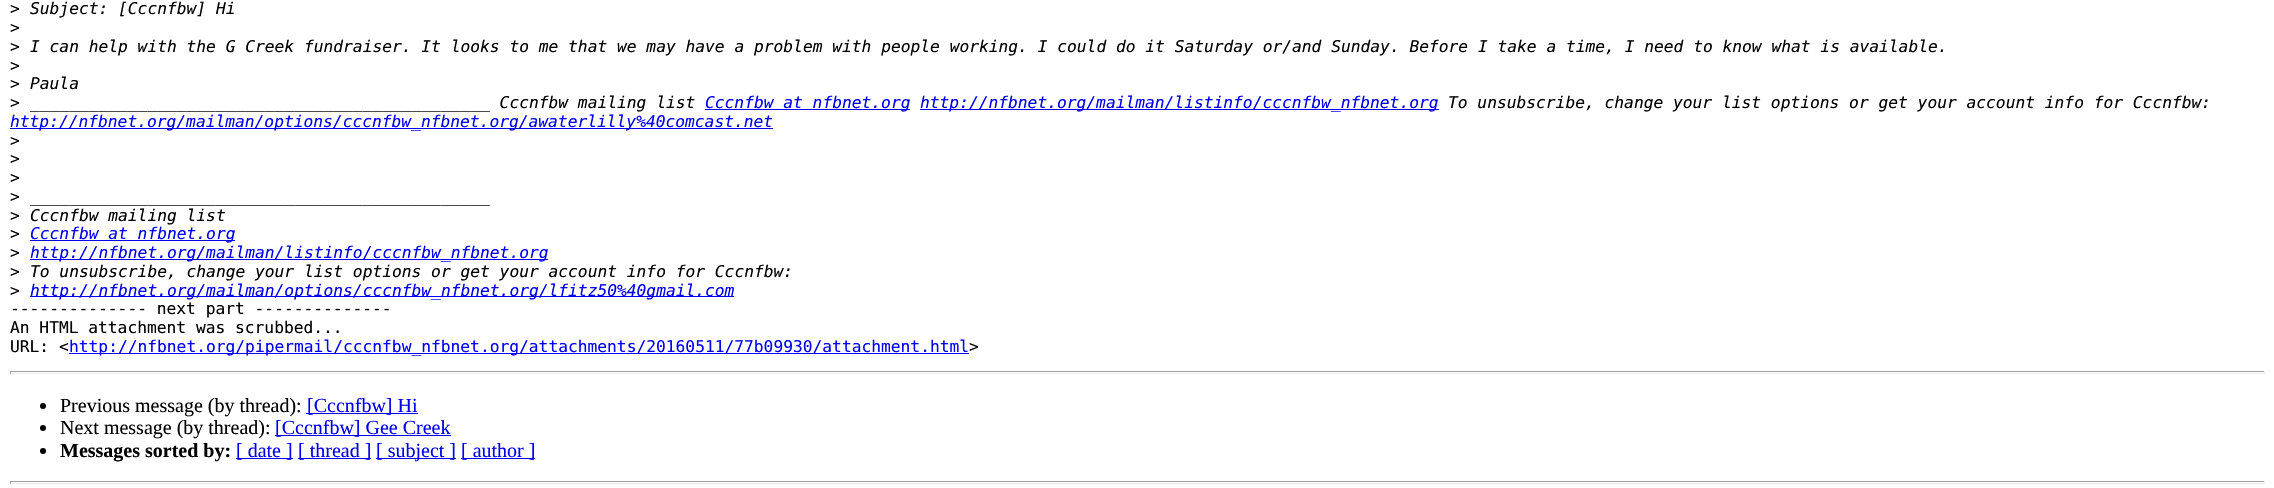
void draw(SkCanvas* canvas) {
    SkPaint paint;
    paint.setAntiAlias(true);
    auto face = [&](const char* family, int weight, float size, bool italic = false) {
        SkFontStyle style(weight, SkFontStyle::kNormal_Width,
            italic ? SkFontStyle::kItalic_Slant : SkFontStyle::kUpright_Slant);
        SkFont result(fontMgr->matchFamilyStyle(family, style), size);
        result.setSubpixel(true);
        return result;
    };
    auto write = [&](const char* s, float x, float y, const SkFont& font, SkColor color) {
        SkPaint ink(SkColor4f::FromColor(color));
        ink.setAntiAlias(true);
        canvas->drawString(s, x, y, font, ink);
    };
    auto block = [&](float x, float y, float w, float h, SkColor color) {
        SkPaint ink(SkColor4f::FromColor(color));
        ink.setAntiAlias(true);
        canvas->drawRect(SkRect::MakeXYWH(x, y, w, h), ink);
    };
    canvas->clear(SK_ColorWHITE);
    auto kFont1 = face("DejaVu Sans Mono", 400, 16.25f);
    write(">", 10, 14, kFont1, SK_ColorBLACK);
    auto kFont2 = face("DejaVu Sans Mono", 400, 16.25f, true);
    write("Subject: [Cccnfbw] Hi", 30, 14, kFont2, SK_ColorBLACK);
    write(">", 10, 33, kFont1, SK_ColorBLACK);
    write(">", 10, 52, kFont1, SK_ColorBLACK);
    write("I can help with the G Creek fundraiser. It looks to me that we may have a problem with people working. I could do it Saturday or/and Sunday. Before I take a time, I need to know what is available.", 30, 52, kFont2, SK_ColorBLACK);
    write(">", 10, 71, kFont1, SK_ColorBLACK);
    write(">", 10, 89, kFont1, SK_ColorBLACK);
    write("Paula", 30, 89, kFont2, SK_ColorBLACK);
    write(">", 10, 108, kFont1, SK_ColorBLACK);
    write("_______________________________________________ Cccnfbw mailing list", 30, 108, kFont2, SK_ColorBLACK);
    block(705, 109, 205, 1, SkColorSetRGB(0, 0, 238));
    write("Cccnfbw at nfbnet.org", 705, 108, kFont2, SkColorSetRGB(0, 0, 238));
    block(920, 109, 519, 1, SkColorSetRGB(0, 0, 238));
    write("http://nfbnet.org/mailman/listinfo/cccnfbw_nfbnet.org", 920, 108, kFont2, SkColorSetRGB(0, 0, 238));
    write("To unsubscribe, change your list options or get your account info for Cccnfbw:", 1448, 108, kFont2, SK_ColorBLACK);
    block(10, 128, 763, 1, SkColorSetRGB(0, 0, 238));
    write("http://nfbnet.org/mailman/options/cccnfbw_nfbnet.org/awaterlilly%40comcast.net", 10, 127, kFont2, SkColorSetRGB(0, 0, 238));
    write(">", 10, 146, kFont1, SK_ColorBLACK);
    write(">", 10, 164, kFont1, SK_ColorBLACK);
    write(">", 10, 183, kFont1, SK_ColorBLACK);
    write(">", 10, 202, kFont1, SK_ColorBLACK);
    write("_______________________________________________", 30, 202, kFont2, SK_ColorBLACK);
    write(">", 10, 221, kFont1, SK_ColorBLACK);
    write("Cccnfbw mailing list", 30, 221, kFont2, SK_ColorBLACK);
    write(">", 10, 239, kFont1, SK_ColorBLACK);
    block(30, 240, 205, 1, SkColorSetRGB(0, 0, 238));
    write("Cccnfbw at nfbnet.org", 30, 239, kFont2, SkColorSetRGB(0, 0, 238));
    write(">", 10, 258, kFont1, SK_ColorBLACK);
    block(30, 259, 518, 1, SkColorSetRGB(0, 0, 238));
    write("http://nfbnet.org/mailman/listinfo/cccnfbw_nfbnet.org", 30, 258, kFont2, SkColorSetRGB(0, 0, 238));
    write(">", 10, 277, kFont1, SK_ColorBLACK);
    write("To unsubscribe, change your list options or get your account info for Cccnfbw:", 30, 277, kFont2, SK_ColorBLACK);
    write(">", 10, 296, kFont1, SK_ColorBLACK);
    block(30, 296, 704, 1, SkColorSetRGB(0, 0, 238));
    write("http://nfbnet.org/mailman/options/cccnfbw_nfbnet.org/lfitz50%40gmail.com", 30, 296, kFont2, SkColorSetRGB(0, 0, 238));
    write("-------------- next part --------------", 10, 314, kFont1, SK_ColorBLACK);
    write("An HTML attachment was scrubbed...", 10, 333, kFont1, SK_ColorBLACK);
    write("URL: <", 10, 352, kFont1, SK_ColorBLACK);
    block(69, 353, 900, 1, SkColorSetRGB(0, 0, 238));
    write("http://nfbnet.org/pipermail/cccnfbw_nfbnet.org/attachments/20160511/77b09930/attachment.html", 69, 352, kFont1, SkColorSetRGB(0, 0, 238));
    write(">", 969, 352, kFont1, SK_ColorBLACK);
    block(10, 371, 2255, 1, SkColorSetRGB(159, 159, 159));
    block(2264, 371, 1, 3, SkColorSetRGB(238, 238, 238));
    block(10, 373, 2255, 1, SkColorSetRGB(238, 238, 238));
    block(10, 371, 1, 3, SkColorSetRGB(159, 159, 159));
    paint.setColor(SK_ColorBLACK);
    canvas->drawCircle(43, 406, 3, paint);
    auto kFont3 = face("Liberation Serif", 400, 20);
    write("Previous message (by thread):", 60, 412, kFont3, SK_ColorBLACK);
    block(306, 413, 112, 1, SkColorSetRGB(0, 0, 238));
    write("[Cccnfbw] Hi", 307, 412, kFont3, SkColorSetRGB(0, 0, 238));
    canvas->drawCircle(43, 428, 3, paint);
    write("Next message (by thread):", 60, 434, kFont3, SK_ColorBLACK);
    block(275, 435, 176, 1, SkColorSetRGB(0, 0, 238));
    write("[Cccnfbw] Gee Creek", 275, 434, kFont3, SkColorSetRGB(0, 0, 238));
    canvas->drawCircle(43, 451, 3, paint);
    auto kFont4 = face("Liberation Serif", 700, 20);
    write("Messages sorted by:", 60, 457, kFont4, SK_ColorBLACK);
    block(236, 458, 57, 1, SkColorSetRGB(0, 0, 238));
    write("[ date ]", 236, 457, kFont3, SkColorSetRGB(0, 0, 238));
    block(298, 458, 73, 1, SkColorSetRGB(0, 0, 238));
    write("[ thread ]", 298, 457, kFont3, SkColorSetRGB(0, 0, 238));
    block(376, 458, 80, 1, SkColorSetRGB(0, 0, 238));
    write("[ subject ]", 376, 457, kFont3, SkColorSetRGB(0, 0, 238));
    block(461, 458, 74, 1, SkColorSetRGB(0, 0, 238));
    write("[ author ]", 461, 457, kFont3, SkColorSetRGB(0, 0, 238));
    block(10, 481, 2255, 1, SkColorSetRGB(159, 159, 159));
    block(2264, 481, 1, 3, SkColorSetRGB(238, 238, 238));
    block(10, 483, 2255, 1, SkColorSetRGB(238, 238, 238));
    block(10, 481, 1, 3, SkColorSetRGB(159, 159, 159));
}
